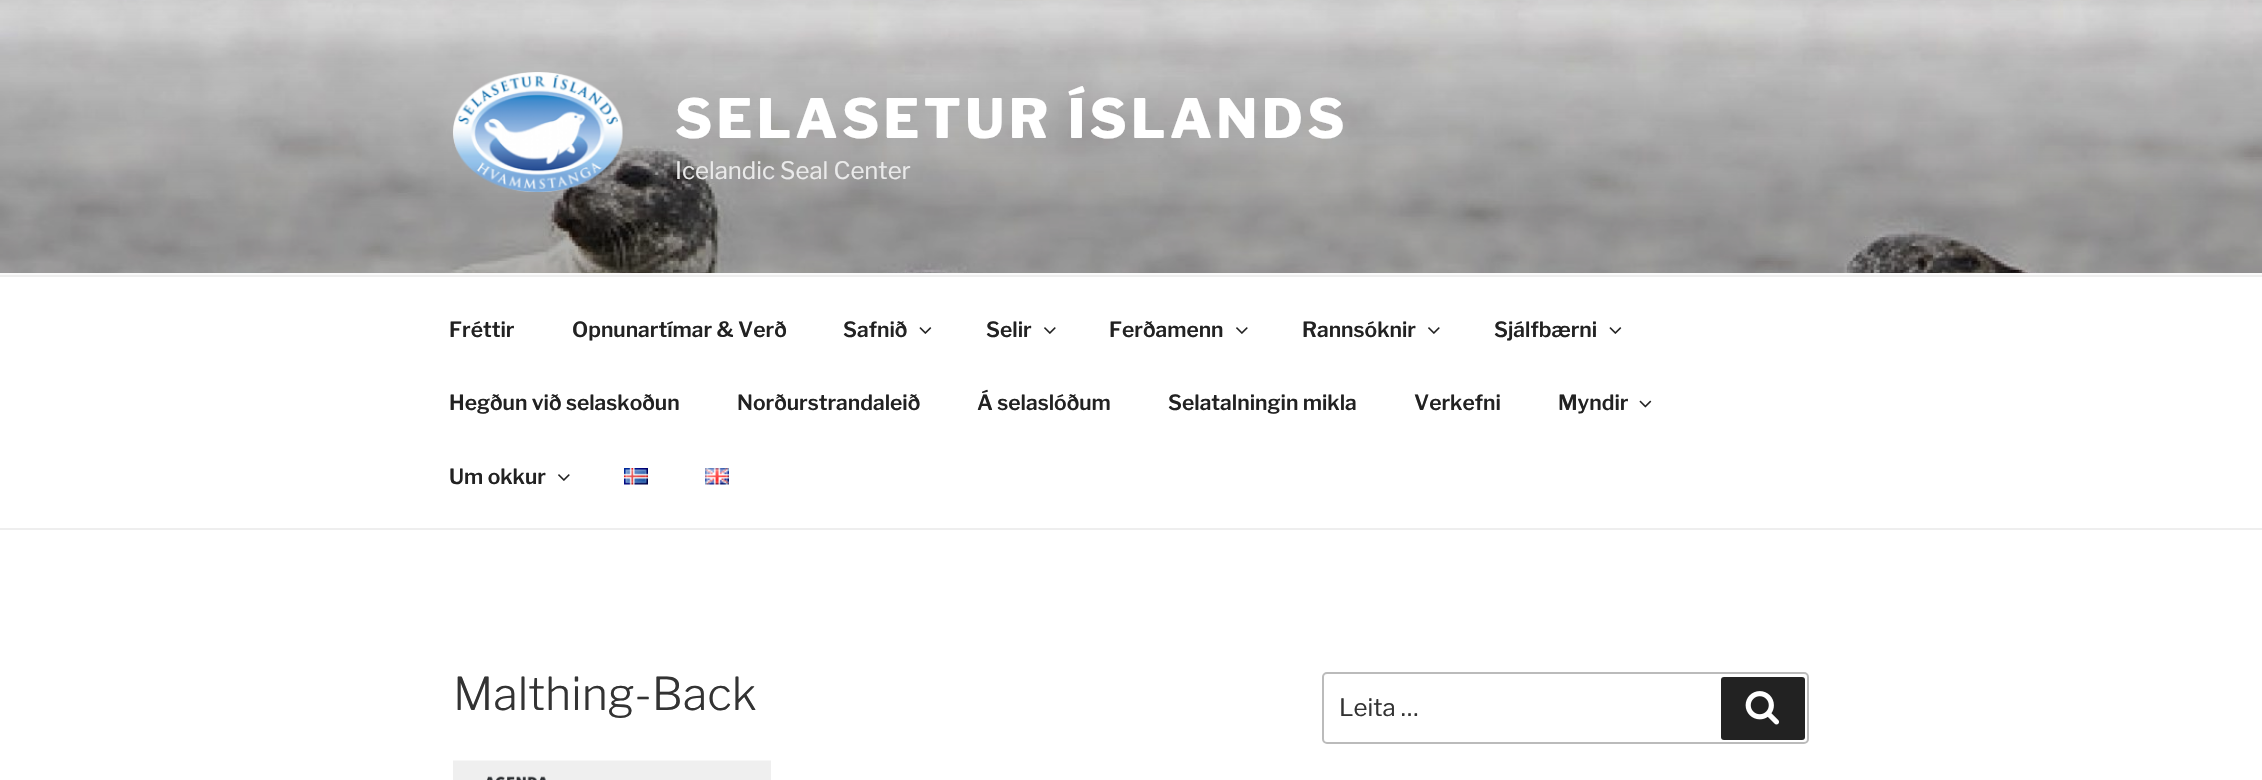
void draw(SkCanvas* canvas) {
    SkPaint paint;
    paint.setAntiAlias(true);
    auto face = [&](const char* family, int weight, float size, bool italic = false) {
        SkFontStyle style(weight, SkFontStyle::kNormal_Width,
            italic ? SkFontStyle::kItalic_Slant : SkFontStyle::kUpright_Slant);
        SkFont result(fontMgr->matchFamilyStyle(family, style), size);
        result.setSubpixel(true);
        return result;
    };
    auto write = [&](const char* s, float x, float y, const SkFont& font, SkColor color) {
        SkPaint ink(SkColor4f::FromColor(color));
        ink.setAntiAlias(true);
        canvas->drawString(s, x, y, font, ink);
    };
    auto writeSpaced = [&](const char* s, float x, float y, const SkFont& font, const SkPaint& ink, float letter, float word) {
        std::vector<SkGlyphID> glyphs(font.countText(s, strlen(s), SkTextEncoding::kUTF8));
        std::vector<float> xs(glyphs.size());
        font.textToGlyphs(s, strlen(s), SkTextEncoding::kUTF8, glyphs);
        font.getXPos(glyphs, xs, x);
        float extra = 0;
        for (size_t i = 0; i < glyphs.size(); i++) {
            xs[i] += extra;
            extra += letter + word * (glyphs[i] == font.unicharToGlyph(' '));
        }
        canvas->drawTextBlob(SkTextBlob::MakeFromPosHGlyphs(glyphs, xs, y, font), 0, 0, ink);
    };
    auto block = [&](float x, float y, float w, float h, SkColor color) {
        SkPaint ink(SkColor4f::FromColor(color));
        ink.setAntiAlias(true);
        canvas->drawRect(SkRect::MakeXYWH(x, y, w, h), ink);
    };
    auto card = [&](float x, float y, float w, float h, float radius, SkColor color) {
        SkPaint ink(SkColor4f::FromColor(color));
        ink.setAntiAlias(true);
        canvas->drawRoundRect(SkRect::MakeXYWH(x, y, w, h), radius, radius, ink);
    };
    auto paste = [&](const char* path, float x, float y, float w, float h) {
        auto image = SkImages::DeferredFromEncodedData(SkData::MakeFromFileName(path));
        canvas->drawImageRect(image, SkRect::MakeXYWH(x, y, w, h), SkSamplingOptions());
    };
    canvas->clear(SK_ColorWHITE);
    block(0, 273, 2262, 2, SkColorSetRGB(250, 250, 250));
    paste("pic1.png", 0, 0, 2262, 273);
    paste("pic2.png", 453, 72, 170, 120);
    auto kFont1 = face("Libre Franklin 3", 100, 54);
    paint.setColor(SK_ColorWHITE);
    writeSpaced("SELASETUR ÍSLANDS", 675, 138, kFont1, paint, 4.3f, 0);
    auto kFont2 = face("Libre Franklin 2", 100, 24);
    write("Icelandic Seal Center", 675, 179, kFont2, SkColorSetRGB(234, 234, 234));
    block(0, 275, 2262, 2, SkColorSetRGB(238, 238, 238));
    block(0, 528, 2262, 2, SkColorSetRGB(238, 238, 238));
    auto kFont3 = face("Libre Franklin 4", 100, 21);
    write("Fréttir", 449, 337, kFont3, SkColorSetRGB(34, 34, 34));
    write("Opnunartímar & Verð", 572, 337, kFont3, SkColorSetRGB(34, 34, 34));
    write("Safnið", 843, 337, kFont3, SkColorSetRGB(34, 34, 34));
    paste("pic3.png", 919, 327, 13, 7);
    write("Selir", 986, 337, kFont3, SkColorSetRGB(34, 34, 34));
    paste("pic4.png", 1044, 327, 12, 7);
    write("Ferðamenn", 1109, 337, kFont3, SkColorSetRGB(34, 34, 34));
    paste("pic4.png", 1236, 327, 12, 7);
    write("Rannsóknir", 1302, 337, kFont3, SkColorSetRGB(34, 34, 34));
    paste("pic4.png", 1428, 327, 12, 7);
    write("Sjálfbærni", 1494, 337, kFont3, SkColorSetRGB(34, 34, 34));
    paste("pic3.png", 1609, 327, 13, 7);
    write("Hegðun við selaskoðun", 449, 410, kFont3, SkColorSetRGB(34, 34, 34));
    write("Norðurstrandaleið", 737, 410, kFont3, SkColorSetRGB(34, 34, 34));
    write("Á selaslóðum", 977, 410, kFont3, SkColorSetRGB(34, 34, 34));
    write("Selatalningin mikla", 1168, 410, kFont3, SkColorSetRGB(34, 34, 34));
    write("Verkefni", 1414, 410, kFont3, SkColorSetRGB(34, 34, 34));
    write("Myndir", 1558, 410, kFont3, SkColorSetRGB(34, 34, 34));
    paste("pic5.png", 1639, 400, 13, 8);
    write("Um okkur", 449, 484, kFont3, SkColorSetRGB(34, 34, 34));
    paste("pic4.png", 558, 474, 12, 7);
    paste("pic6.png", 624, 468, 24, 17);
    paste("pic7.png", 705, 468, 24, 17);
    auto kFont4 = face("Libre Franklin", 100, 45);
    write("Malthing-Back", 453, 710, kFont4, SkColorSetRGB(51, 51, 51));
    paste("pic8.png", 453, 760, 318, 20);
    paint.setStyle(SkPaint::kStroke_Style);
    paint.setStrokeWidth(2);
    paint.setColor(SkColorSetRGB(187, 187, 187));
    canvas->drawRoundRect(SkRect::MakeXYWH(1323, 673, 485, 70), 4, 4, paint);
    write("Leita …", 1339, 716, kFont2, SkColorSetRGB(51, 51, 51));
    card(1721, 677, 84, 63, 3, SkColorSetRGB(34, 34, 34));
    paste("pic9.png", 1745, 691, 34, 34);
}
